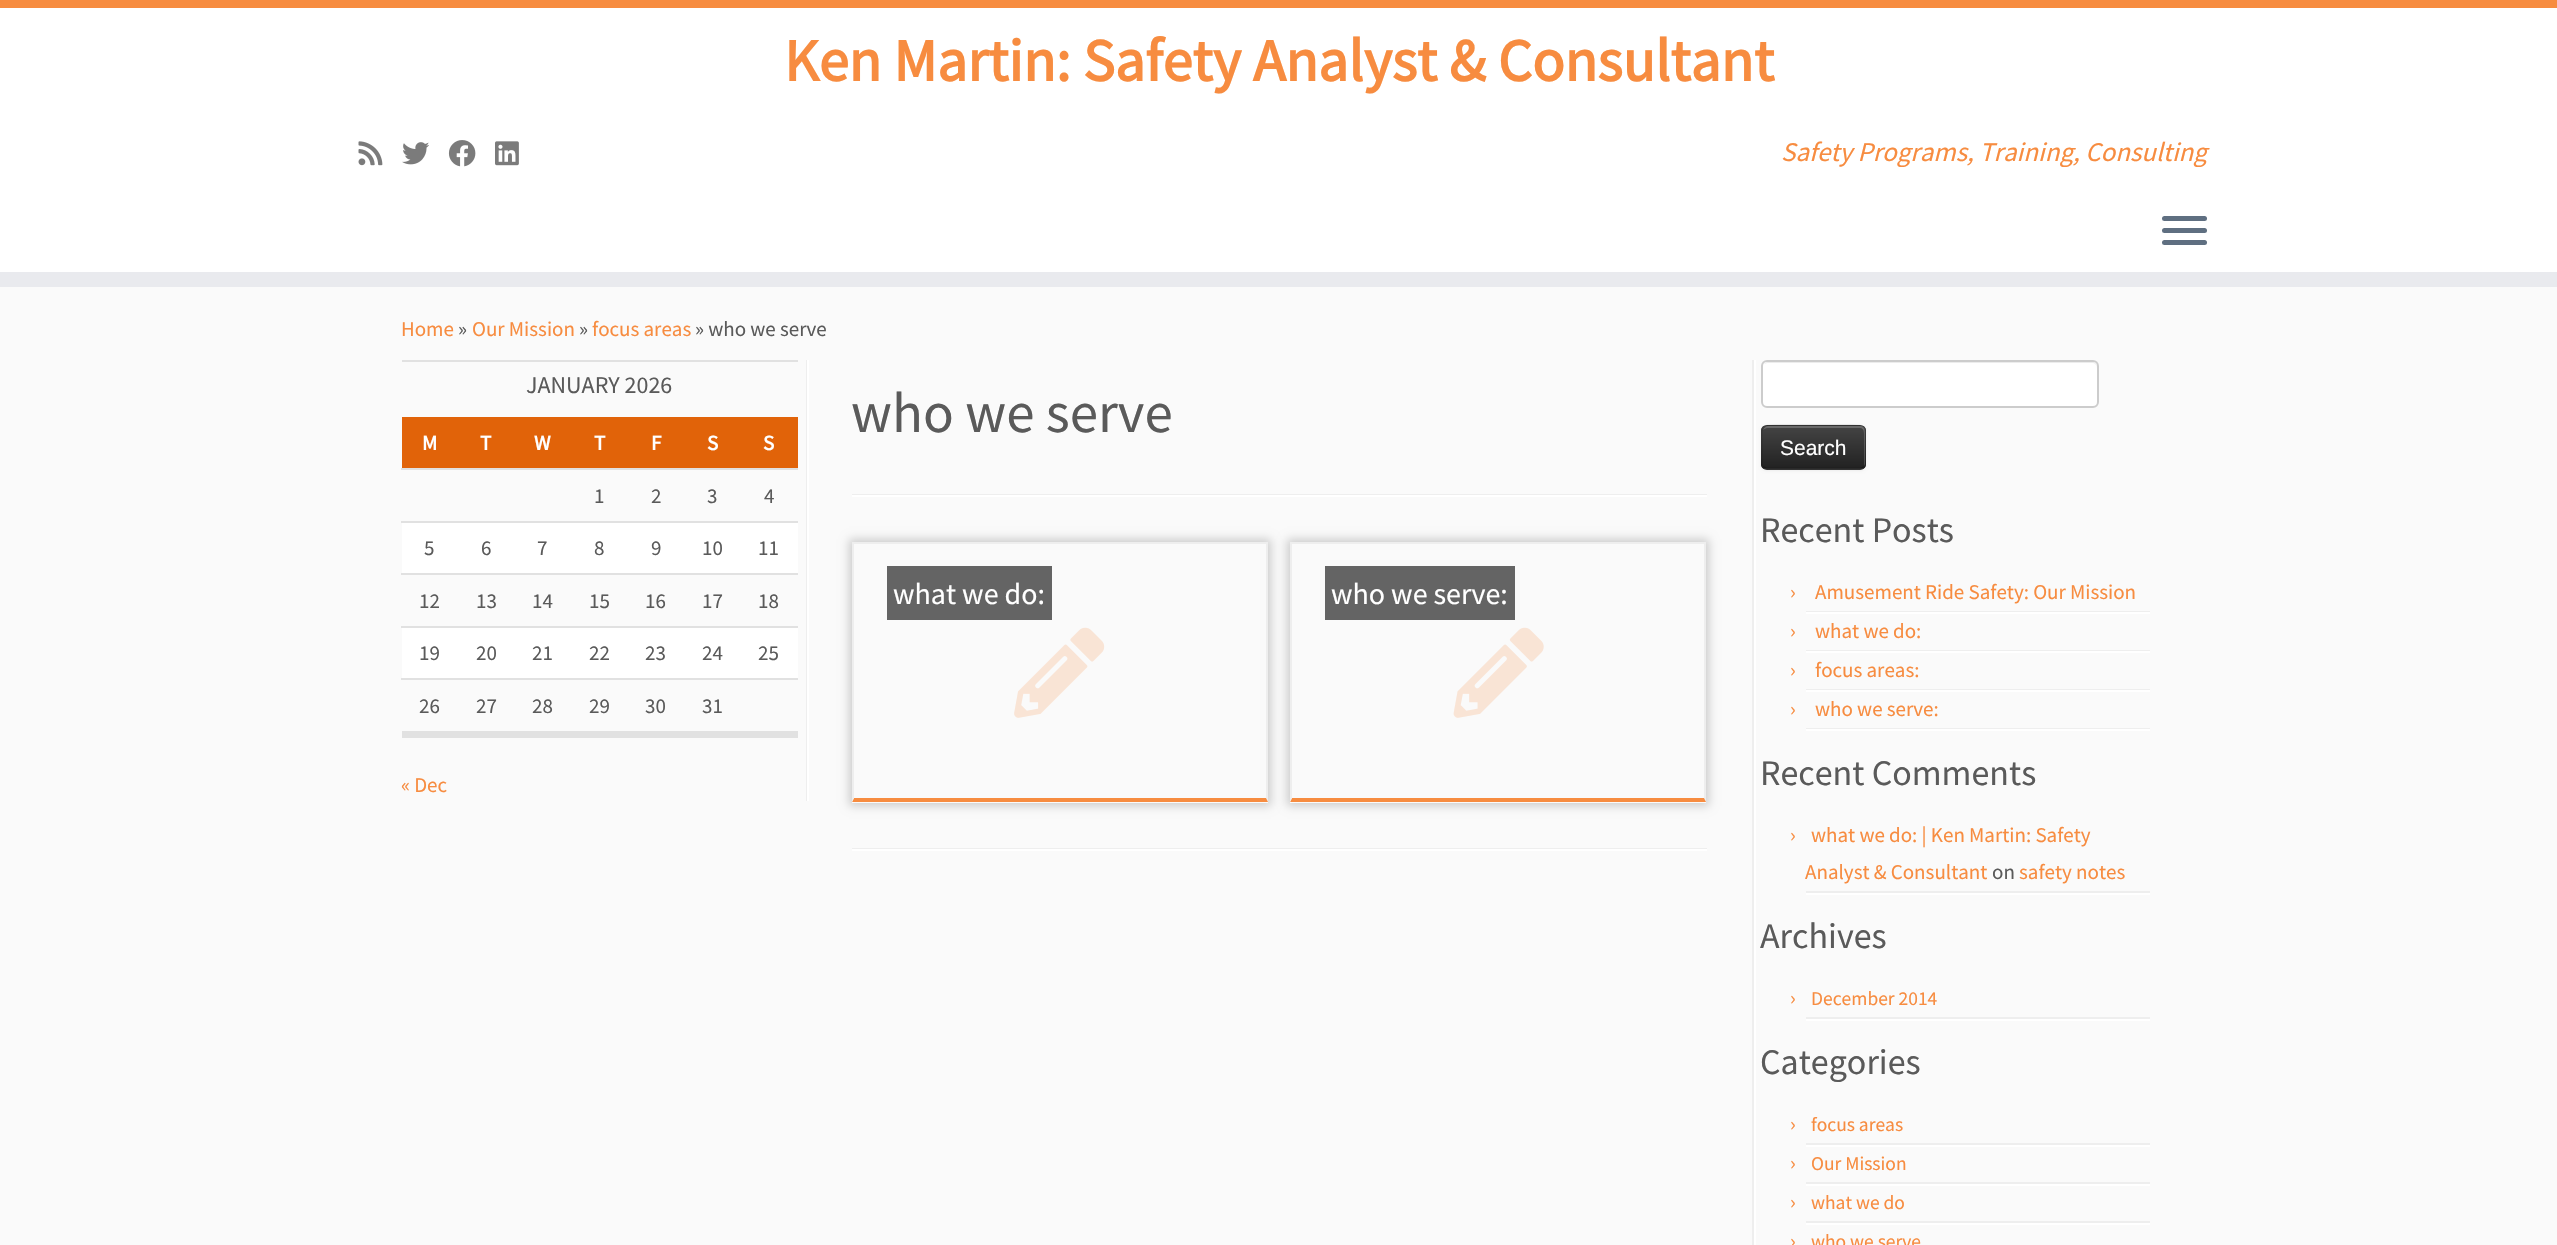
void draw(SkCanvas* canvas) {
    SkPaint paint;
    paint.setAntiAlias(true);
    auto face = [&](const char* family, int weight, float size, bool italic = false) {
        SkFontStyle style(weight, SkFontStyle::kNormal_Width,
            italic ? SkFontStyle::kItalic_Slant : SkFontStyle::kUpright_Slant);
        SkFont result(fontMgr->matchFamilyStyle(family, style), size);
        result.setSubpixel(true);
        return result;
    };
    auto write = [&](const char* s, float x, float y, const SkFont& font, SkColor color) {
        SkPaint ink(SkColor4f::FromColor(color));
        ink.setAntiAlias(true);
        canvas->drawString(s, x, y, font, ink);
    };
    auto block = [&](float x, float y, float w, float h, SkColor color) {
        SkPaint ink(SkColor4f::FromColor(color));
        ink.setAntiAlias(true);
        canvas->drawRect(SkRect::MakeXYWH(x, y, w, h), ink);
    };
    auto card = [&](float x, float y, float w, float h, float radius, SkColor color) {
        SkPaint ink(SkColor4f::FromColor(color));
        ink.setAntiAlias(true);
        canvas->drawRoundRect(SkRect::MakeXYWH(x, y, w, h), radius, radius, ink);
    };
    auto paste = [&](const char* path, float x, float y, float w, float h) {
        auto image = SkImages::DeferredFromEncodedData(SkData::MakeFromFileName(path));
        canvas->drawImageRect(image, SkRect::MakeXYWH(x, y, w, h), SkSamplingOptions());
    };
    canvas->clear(SkColorSetRGB(250, 250, 250));
    block(0, 8, 2557, 264, SK_ColorWHITE);
    block(0, 0, 2557, 8, SkColorSetRGB(247, 140, 64));
    block(0, 272, 2557, 15, SkColorSetRGB(233, 234, 238));
    auto kFont1 = face("Source Sans Pro", 700, 60);
    write("Ken Martin: Safety Analyst & Consultant", 784, 81, kFont1, SkColorSetRGB(247, 140, 64));
    paste("pic1.png", 358, 141, 25, 25);
    paste("pic2.png", 402, 142, 27, 23);
    paste("pic3.png", 448, 140, 28, 27);
    paste("pic4.png", 495, 141, 24, 25);
    auto kFont2 = face("Source Sans Pro", 400, 27, true);
    write("Safety Programs, Training, Consulting", 1781, 161, kFont2, SkColorSetRGB(247, 140, 64));
    card(2162, 216, 45, 5, 2.5f, SkColorSetRGB(95, 111, 129));
    card(2162, 228, 45, 5, 2.5f, SkColorSetRGB(95, 111, 129));
    card(2162, 240, 45, 5, 2.5f, SkColorSetRGB(95, 111, 129));
    auto kFont3 = face("Source Sans Pro", 400, 21);
    write("Home", 401, 336, kFont3, SkColorSetRGB(247, 140, 64));
    write("»", 458, 336, kFont3, SkColorSetRGB(90, 90, 90));
    write("Our Mission", 472, 336, kFont3, SkColorSetRGB(247, 140, 64));
    write("»", 579, 336, kFont3, SkColorSetRGB(90, 90, 90));
    write("focus areas", 592, 336, kFont3, SkColorSetRGB(247, 140, 64));
    write("» who we serve", 695, 336, kFont3, SkColorSetRGB(90, 90, 90));
    block(806, 360, 1, 441, SkColorSetRGB(238, 238, 238));
    block(402, 360, 396, 2, SkColorSetRGB(225, 225, 225));
    block(402, 731, 396, 7, SkColorSetRGB(225, 225, 225));
    auto kFont4 = face("Source Sans Pro", 400, 24);
    write("JANUARY 2026", 526, 393, kFont4, SkColorSetRGB(90, 90, 90));
    block(402, 417, 396, 51, SkColorSetRGB(225, 99, 9));
    auto kFont5 = face("Source Sans Pro", 700, 21);
    write("M", 422, 450, kFont5, SK_ColorWHITE);
    write("T", 480, 450, kFont5, SK_ColorWHITE);
    write("W", 534, 450, kFont5, SK_ColorWHITE);
    write("T", 594, 450, kFont5, SK_ColorWHITE);
    write("F", 651, 450, kFont5, SK_ColorWHITE);
    write("S", 707, 450, kFont5, SK_ColorWHITE);
    write("S", 763, 450, kFont5, SK_ColorWHITE);
    write("1", 594, 503, kFont3, SkColorSetRGB(90, 90, 90));
    write("2", 651, 503, kFont3, SkColorSetRGB(90, 90, 90));
    write("3", 707, 503, kFont3, SkColorSetRGB(90, 90, 90));
    block(401, 468, 397, 2, SkColorSetRGB(225, 225, 225));
    write("4", 764, 503, kFont3, SkColorSetRGB(90, 90, 90));
    block(402, 523, 396, 50, SK_ColorWHITE);
    write("5", 424, 555, kFont3, SkColorSetRGB(90, 90, 90));
    write("6", 481, 555, kFont3, SkColorSetRGB(90, 90, 90));
    write("7", 537, 555, kFont3, SkColorSetRGB(90, 90, 90));
    write("8", 594, 555, kFont3, SkColorSetRGB(90, 90, 90));
    write("9", 651, 555, kFont3, SkColorSetRGB(90, 90, 90));
    write("10", 702, 555, kFont3, SkColorSetRGB(90, 90, 90));
    block(401, 521, 397, 2, SkColorSetRGB(225, 225, 225));
    write("11", 758, 555, kFont3, SkColorSetRGB(90, 90, 90));
    write("12", 419, 608, kFont3, SkColorSetRGB(90, 90, 90));
    write("13", 476, 608, kFont3, SkColorSetRGB(90, 90, 90));
    write("14", 532, 608, kFont3, SkColorSetRGB(90, 90, 90));
    write("15", 589, 608, kFont3, SkColorSetRGB(90, 90, 90));
    write("16", 645, 608, kFont3, SkColorSetRGB(90, 90, 90));
    write("17", 702, 608, kFont3, SkColorSetRGB(90, 90, 90));
    block(401, 573, 397, 2, SkColorSetRGB(225, 225, 225));
    write("18", 758, 608, kFont3, SkColorSetRGB(90, 90, 90));
    block(402, 628, 396, 50, SK_ColorWHITE);
    write("19", 419, 660, kFont3, SkColorSetRGB(90, 90, 90));
    write("20", 476, 660, kFont3, SkColorSetRGB(90, 90, 90));
    write("21", 532, 660, kFont3, SkColorSetRGB(90, 90, 90));
    write("22", 589, 660, kFont3, SkColorSetRGB(90, 90, 90));
    write("23", 645, 660, kFont3, SkColorSetRGB(90, 90, 90));
    write("24", 702, 660, kFont3, SkColorSetRGB(90, 90, 90));
    block(401, 626, 397, 2, SkColorSetRGB(225, 225, 225));
    write("25", 758, 660, kFont3, SkColorSetRGB(90, 90, 90));
    block(401, 678, 397, 2, SkColorSetRGB(225, 225, 225));
    write("26", 419, 713, kFont3, SkColorSetRGB(90, 90, 90));
    write("27", 476, 713, kFont3, SkColorSetRGB(90, 90, 90));
    write("28", 532, 713, kFont3, SkColorSetRGB(90, 90, 90));
    write("29", 589, 713, kFont3, SkColorSetRGB(90, 90, 90));
    write("30", 645, 713, kFont3, SkColorSetRGB(90, 90, 90));
    write("31", 702, 713, kFont3, SkColorSetRGB(90, 90, 90));
    write("« Dec", 401, 792, kFont3, SkColorSetRGB(247, 140, 64));
    block(807, 360, 2, 441, SK_ColorWHITE);
    auto kFont6 = face("Source Sans Pro", 400, 57);
    write("who we serve", 851, 432, kFont6, SkColorSetRGB(90, 90, 90));
    block(852, 494, 855, 1, SkColorSetRGB(238, 238, 238));
    block(852, 495, 855, 2, SK_ColorWHITE);
    canvas->save();
    canvas->clipPath(SkPathBuilder(SkPathFillType::kEvenOdd).moveTo(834, 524).lineTo(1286, 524).lineTo(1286, 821).lineTo(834, 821).close().moveTo(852, 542).lineTo(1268, 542).lineTo(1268, 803).lineTo(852, 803).close().detach(), true);
    paint.setColor(SkColorSetRGB(204, 204, 204));
    paint.setMaskFilter(SkMaskFilter::MakeBlur(kNormal_SkBlurStyle, 4.5f));
    canvas->drawRect(SkRect::MakeXYWH(849, 539, 422, 267), paint);
    paint.setMaskFilter(nullptr);
    canvas->restore();
    block(852, 542, 416, 2, SkColorSetRGB(238, 238, 238));
    paint.setColor(SkColorSetRGB(238, 238, 238));
    canvas->drawPath(SkPathBuilder().moveTo(1268, 542).lineTo(1268, 802).lineTo(1266, 798).lineTo(1266, 543).close().detach(), paint);
    paint.setColor(SkColorSetRGB(247, 140, 64));
    canvas->drawPath(SkPathBuilder().moveTo(1268, 802).lineTo(852, 802).lineTo(854, 798).lineTo(1266, 798).close().detach(), paint);
    paint.setColor(SkColorSetRGB(238, 238, 238));
    canvas->drawPath(SkPathBuilder().moveTo(852, 802).lineTo(852, 542).lineTo(854, 543).lineTo(854, 798).close().detach(), paint);
    block(887, 566, 165, 54, SkColorSetRGB(100, 100, 100));
    auto kFont7 = face("Source Sans Pro", 400, 30);
    write("what we do:", 893, 604, kFont7, SK_ColorWHITE);
    paste("pic5.png", 1014, 627, 91, 91);
    canvas->save();
    canvas->clipPath(SkPathBuilder(SkPathFillType::kEvenOdd).moveTo(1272, 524).lineTo(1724, 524).lineTo(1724, 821).lineTo(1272, 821).close().moveTo(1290, 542).lineTo(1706, 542).lineTo(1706, 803).lineTo(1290, 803).close().detach(), true);
    paint.setColor(SkColorSetRGB(204, 204, 204));
    paint.setMaskFilter(SkMaskFilter::MakeBlur(kNormal_SkBlurStyle, 4.5f));
    canvas->drawRect(SkRect::MakeXYWH(1287, 539, 422, 267), paint);
    paint.setMaskFilter(nullptr);
    canvas->restore();
    block(1290, 542, 416, 2, SkColorSetRGB(238, 238, 238));
    paint.setColor(SkColorSetRGB(238, 238, 238));
    canvas->drawPath(SkPathBuilder().moveTo(1706, 542).lineTo(1706, 802).lineTo(1704, 798).lineTo(1704, 543).close().detach(), paint);
    paint.setColor(SkColorSetRGB(247, 140, 64));
    canvas->drawPath(SkPathBuilder().moveTo(1706, 802).lineTo(1290, 802).lineTo(1292, 798).lineTo(1704, 798).close().detach(), paint);
    paint.setColor(SkColorSetRGB(238, 238, 238));
    canvas->drawPath(SkPathBuilder().moveTo(1290, 802).lineTo(1290, 542).lineTo(1292, 543).lineTo(1292, 798).close().detach(), paint);
    block(1325, 566, 190, 54, SkColorSetRGB(100, 100, 100));
    write("who we serve:", 1331, 604, kFont7, SK_ColorWHITE);
    paste("pic6.png", 1453, 627, 91, 91);
    block(852, 848, 855, 1, SkColorSetRGB(238, 238, 238));
    block(852, 849, 855, 2, SK_ColorWHITE);
    block(1752, 360, 2, 885, SkColorSetRGB(238, 238, 238));
    paint.setColor(SkColorSetARGB(13, 0, 0, 0));
    paint.setMaskFilter(SkMaskFilter::MakeBlur(kNormal_SkBlurStyle, 1.5f));
    canvas->drawRoundRect(SkRect::MakeXYWH(1761, 426, 105, 45), 6, 6, paint);
    paint.setMaskFilter(nullptr);
    block(1754, 360, 2, 885, SK_ColorWHITE);
    card(1761, 360, 338, 48, 6, SK_ColorWHITE);
    paint.setColor(SkColorSetRGB(236, 236, 236));
    canvas->drawPath(SkPathBuilder().moveTo(1767, 363).lineTo(2092, 363).cubicTo(2095, 363, 2097, 365, 2097, 368).lineTo(2097, 367).cubicTo(2097, 364, 2095, 362, 2092, 362).lineTo(1768, 362).cubicTo(1766, 362, 1765, 363, 1764, 364).close().detach(), paint);
    paint.setStyle(SkPaint::kStroke_Style);
    paint.setStrokeWidth(2);
    paint.setColor(SkColorSetRGB(204, 204, 204));
    canvas->drawRoundRect(SkRect::MakeXYWH(1762, 361, 336, 46), 5, 5, paint);
    card(1761, 425, 105, 45, 6, SkColorSetRGB(54, 54, 54));
    canvas->save();
    canvas->clipPath(SkPathBuilder().moveTo(1767, 425).lineTo(1860, 425).cubicTo(1863.5f, 425, 1866, 427.5f, 1866, 431).lineTo(1866, 464).cubicTo(1866, 467.5f, 1863.5f, 470, 1860, 470).lineTo(1767, 470).cubicTo(1763.5f, 470, 1761, 467.5f, 1761, 464).lineTo(1761, 431).cubicTo(1761, 427.5f, 1763.5f, 425, 1767, 425).close().detach(), true);
    paint.setStyle(SkPaint::kFill_Style);
    {
        const SkColor colors[] = {SkColorSetRGB(68, 68, 68), SkColorSetRGB(34, 34, 34)};
        const float stops[] = {0, 1};
        const SkPoint ends[] = {{1814, 426}, {1814, 468}};
        paint.setShader(SkGradientShader::MakeLinear(ends, colors, stops, 2, SkTileMode::kClamp));
        paint.setAlpha(255);
    }
    canvas->drawRect(SkRect::MakeXYWH(1761, 426, 105, 42), paint);
    canvas->restore();
    paint.setShader(nullptr);
    paint.setColor(SkColorSetARGB(51, 255, 255, 255));
    canvas->drawPath(SkPathBuilder().moveTo(1767, 428).lineTo(1860, 428).cubicTo(1865, 428, 1864, 435, 1864, 438).lineTo(1864, 466).cubicTo(1865, 465, 1865, 464, 1865, 463).lineTo(1865, 431).cubicTo(1865, 428, 1863, 426, 1860, 426).lineTo(1768, 426).cubicTo(1766, 426, 1764, 428, 1763, 430).cubicTo(1764, 429, 1766, 428, 1767, 428).close().detach(), paint);
    paint.setStyle(SkPaint::kStroke_Style);
    paint.setStrokeWidth(1.5f);
    paint.setColor(SkColorSetARGB(64, 0, 0, 0));
    canvas->drawPath(SkPathBuilder().moveTo(1863.5f, 467).lineTo(1860.5f, 468.5f).lineTo(1766.5f, 468.5f).lineTo(1763.5f, 467).detach(), paint);
    paint.setColor(SkColorSetARGB(26, 0, 0, 0));
    canvas->drawPath(SkPathBuilder().moveTo(1763.5f, 467).cubicTo(1761, 465, 1762, 461, 1762, 458).lineTo(1762, 447).cubicTo(1762, 423, 1758, 425, 1782.5f, 425).lineTo(1844.5f, 425).cubicTo(1869, 425, 1865, 423, 1865, 447).lineTo(1865, 458).cubicTo(1865, 461, 1866, 465, 1863.5f, 467).detach(), paint);
    auto kFont8 = face("Liberation Sans", 400, 21);
    write("Search", 1780, 455, kFont8, SK_ColorWHITE);
    auto kFont9 = face("Source Sans Pro", 400, 36);
    write("Recent Posts", 1760, 542, kFont9, SkColorSetRGB(90, 90, 90));
    block(1806, 611, 344, 1, SkColorSetRGB(238, 238, 238));
    write("›", 1790, 599, kFont3, SkColorSetRGB(247, 140, 64));
    write("Amusement Ride Safety: Our Mission", 1815, 599, kFont3, SkColorSetRGB(247, 140, 64));
    block(1806, 612, 344, 2, SK_ColorWHITE);
    block(1806, 650, 344, 1, SkColorSetRGB(238, 238, 238));
    write("›", 1790, 638, kFont3, SkColorSetRGB(247, 140, 64));
    write("what we do:", 1815, 638, kFont3, SkColorSetRGB(247, 140, 64));
    block(1806, 651, 344, 2, SK_ColorWHITE);
    block(1806, 689, 344, 1, SkColorSetRGB(238, 238, 238));
    write("›", 1790, 677, kFont3, SkColorSetRGB(247, 140, 64));
    write("focus areas:", 1815, 677, kFont3, SkColorSetRGB(247, 140, 64));
    block(1806, 690, 344, 2, SK_ColorWHITE);
    block(1806, 728, 344, 1, SkColorSetRGB(238, 238, 238));
    write("›", 1790, 716, kFont3, SkColorSetRGB(247, 140, 64));
    write("who we serve:", 1815, 716, kFont3, SkColorSetRGB(247, 140, 64));
    block(1806, 729, 344, 2, SK_ColorWHITE);
    write("Recent Comments", 1760, 785, kFont9, SkColorSetRGB(90, 90, 90));
    block(1806, 891, 344, 2, SkColorSetRGB(238, 238, 238));
    write("›", 1790, 842, kFont3, SkColorSetRGB(247, 140, 64));
    write("what we do: | Ken Martin: Safety", 1811, 842, kFont3, SkColorSetRGB(247, 140, 64));
    write("Analyst & Consultant", 1805, 879, kFont3, SkColorSetRGB(247, 140, 64));
    write("on", 1992, 879, kFont3, SkColorSetRGB(90, 90, 90));
    write("safety notes", 2019, 879, kFont3, SkColorSetRGB(247, 140, 64));
    block(1806, 893, 344, 2, SK_ColorWHITE);
    write("Archives", 1760, 948, kFont9, SkColorSetRGB(90, 90, 90));
    block(1806, 1017, 344, 2, SkColorSetRGB(238, 238, 238));
    write("›", 1790, 1005, kFont3, SkColorSetRGB(247, 140, 64));
    auto kFont10 = face("Source Sans Pro", 400, 19.5f);
    write("December 2014", 1811, 1005, kFont10, SkColorSetRGB(247, 140, 64));
    block(1806, 1019, 344, 2, SK_ColorWHITE);
    write("Categories", 1760, 1074, kFont9, SkColorSetRGB(90, 90, 90));
    block(1806, 1143, 344, 2, SkColorSetRGB(238, 238, 238));
    write("›", 1790, 1131, kFont3, SkColorSetRGB(247, 140, 64));
    write("focus areas", 1811, 1131, kFont10, SkColorSetRGB(247, 140, 64));
    block(1806, 1145, 344, 2, SK_ColorWHITE);
    block(1806, 1182, 344, 2, SkColorSetRGB(238, 238, 238));
    write("›", 1790, 1170, kFont3, SkColorSetRGB(247, 140, 64));
    write("Our Mission", 1811, 1170, kFont10, SkColorSetRGB(247, 140, 64));
    block(1806, 1184, 344, 2, SK_ColorWHITE);
    block(1806, 1221, 344, 2, SkColorSetRGB(238, 238, 238));
    write("›", 1790, 1209, kFont3, SkColorSetRGB(247, 140, 64));
    write("what we do", 1811, 1209, kFont10, SkColorSetRGB(247, 140, 64));
    block(1806, 1223, 344, 2, SK_ColorWHITE);
    write("›", 1790, 1248, kFont3, SkColorSetRGB(247, 140, 64));
    write("who we serve", 1811, 1248, kFont10, SkColorSetRGB(247, 140, 64));
}
